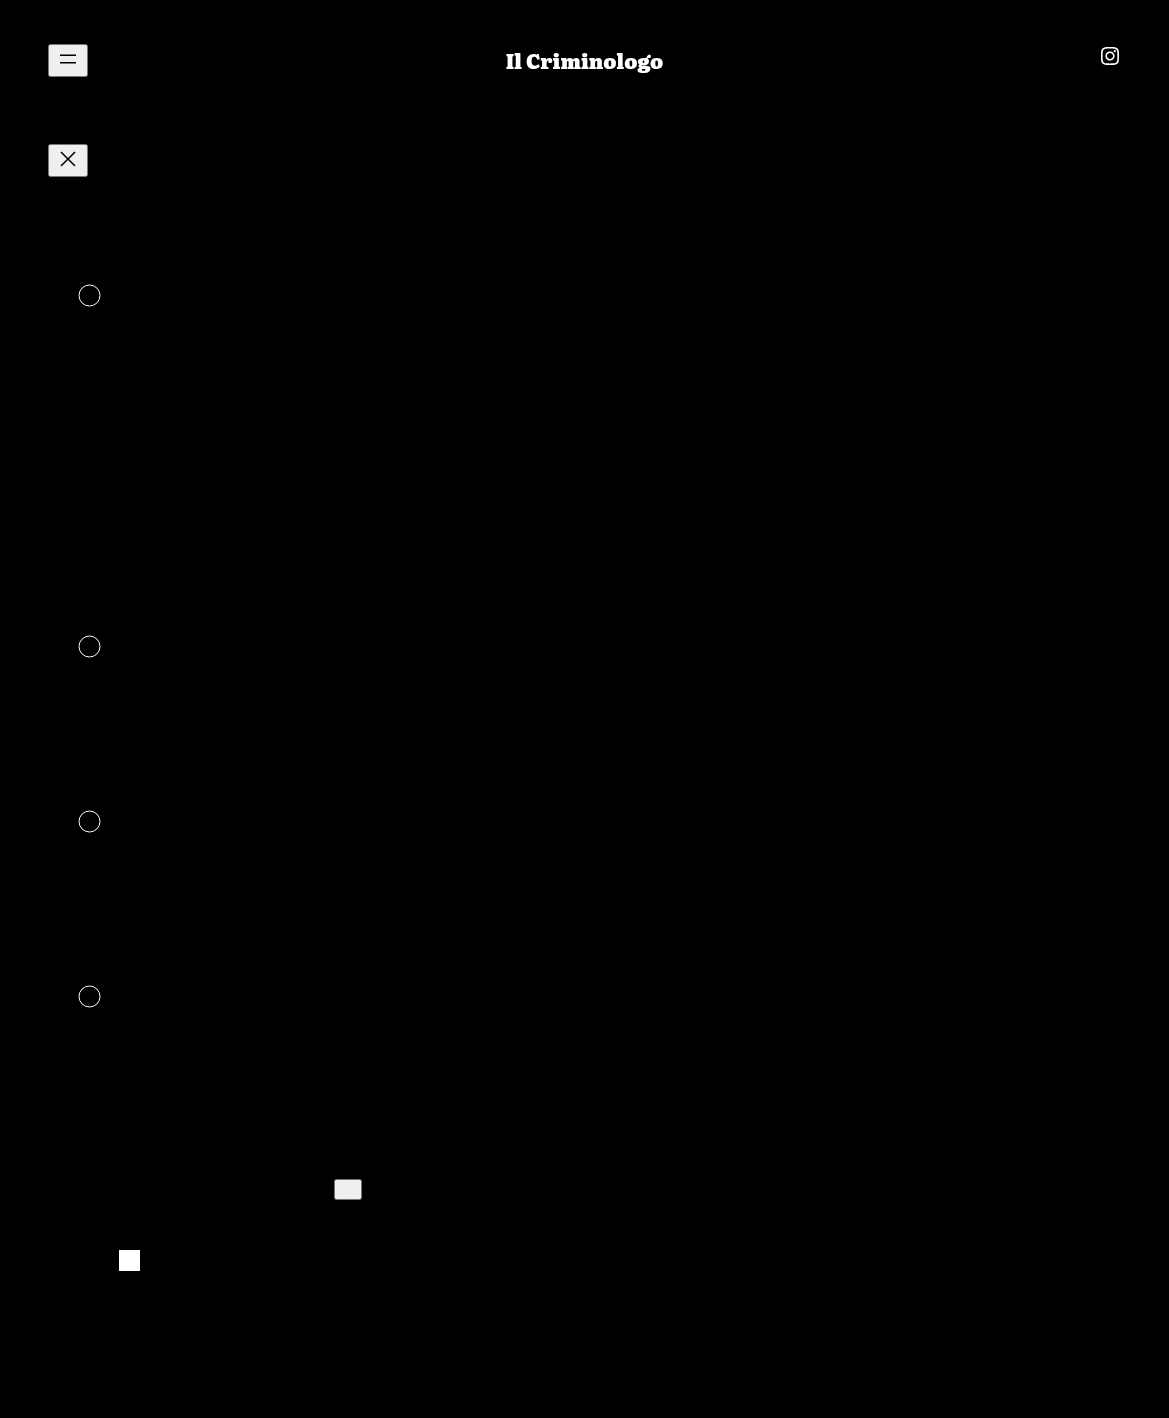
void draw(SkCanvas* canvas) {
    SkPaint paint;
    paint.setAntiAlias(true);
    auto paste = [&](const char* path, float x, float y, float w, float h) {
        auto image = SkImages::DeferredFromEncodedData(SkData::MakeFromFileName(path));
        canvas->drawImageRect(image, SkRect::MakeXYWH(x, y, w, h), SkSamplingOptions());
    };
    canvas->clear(SK_ColorWHITE);
    paste("pic1.png", 0, 0, 1169, 1418);
}
